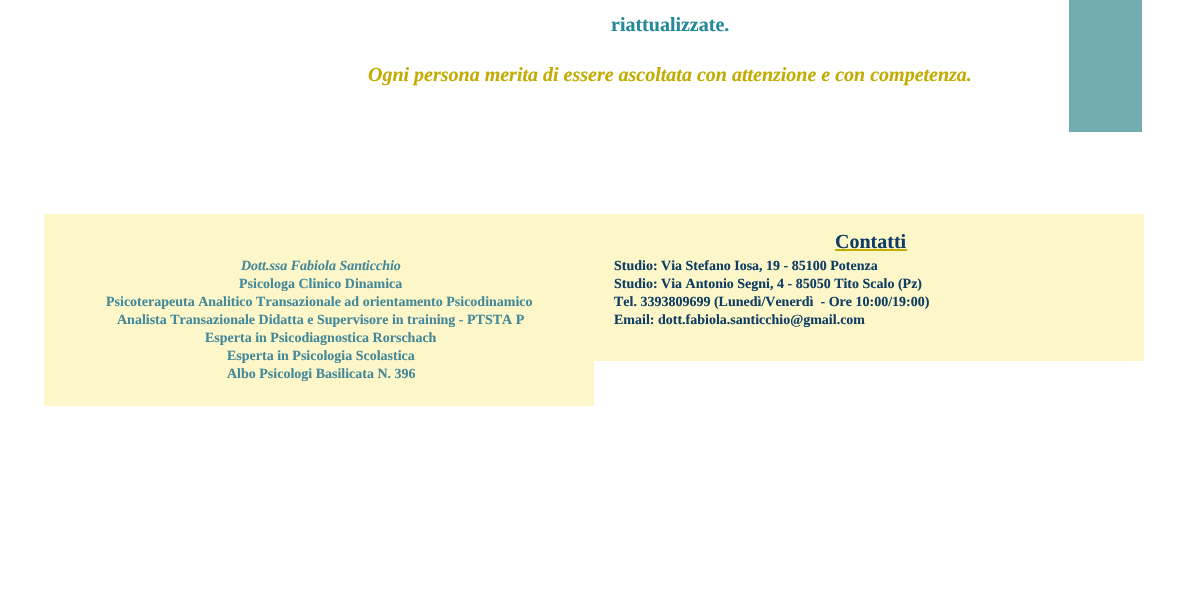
void draw(SkCanvas* canvas) {
    SkPaint paint;
    paint.setAntiAlias(true);
    auto face = [&](const char* family, int weight, float size, bool italic = false) {
        SkFontStyle style(weight, SkFontStyle::kNormal_Width,
            italic ? SkFontStyle::kItalic_Slant : SkFontStyle::kUpright_Slant);
        SkFont result(fontMgr->matchFamilyStyle(family, style), size);
        result.setSubpixel(true);
        return result;
    };
    auto write = [&](const char* s, float x, float y, const SkFont& font, SkColor color) {
        SkPaint ink(SkColor4f::FromColor(color));
        ink.setAntiAlias(true);
        canvas->drawString(s, x, y, font, ink);
    };
    auto block = [&](float x, float y, float w, float h, SkColor color) {
        SkPaint ink(SkColor4f::FromColor(color));
        ink.setAntiAlias(true);
        canvas->drawRect(SkRect::MakeXYWH(x, y, w, h), ink);
    };
    canvas->clear(SK_ColorWHITE);
    auto kFont1 = face("Liberation Serif", 700, 20);
    write("riattualizzate.", 611, 31, kFont1, SkColorSetRGB(36, 137, 153));
    auto kFont2 = face("Liberation Serif", 700, 20, true);
    write("Ogni persona merita di essere ascoltata con attenzione e con competenza.", 368, 81, kFont2, SkColorSetRGB(195, 172, 1));
    block(1069, 0, 73, 132, SkColorSetRGB(113, 172, 176));
    block(44, 214, 550, 192, SkColorSetRGB(253, 246, 201));
    auto kFont3 = face("Liberation Serif", 700, 14, true);
    write("Dott.ssa Fabiola Santicchio", 241, 270, kFont3, SkColorSetRGB(67, 137, 153));
    auto kFont4 = face("Liberation Serif", 700, 14);
    write("Psicologa Clinico Dinamica", 239, 288, kFont4, SkColorSetRGB(67, 137, 153));
    write("Psicoterapeuta Analitico Transazionale ad orientamento Psicodinamico", 106, 306, kFont4, SkColorSetRGB(67, 137, 153));
    write("Analista Transazionale Didatta e Supervisore in training - PTSTA P", 117, 324, kFont4, SkColorSetRGB(67, 137, 153));
    write("Esperta in Psicodiagnostica Rorschach", 205, 342, kFont4, SkColorSetRGB(67, 137, 153));
    write("Esperta in Psicologia Scolastica", 227, 360, kFont4, SkColorSetRGB(67, 137, 153));
    write("Albo Psicologi Basilicata N. 396", 227, 378, kFont4, SkColorSetRGB(67, 137, 153));
    block(594, 214, 550, 147, SkColorSetRGB(253, 246, 201));
    write("Contatti", 835, 248, kFont1, SkColorSetRGB(14, 62, 99));
    block(835, 249, 72, 2, SkColorSetRGB(195, 172, 1));
    write("Studio: Via Stefano Iosa, 19 - 85100 Potenza", 614, 270, kFont4, SkColorSetRGB(14, 62, 99));
    write("Studio: Via Antonio Segni, 4 - 85050 Tito Scalo (Pz)", 614, 288, kFont4, SkColorSetRGB(14, 62, 99));
    write("Tel. 3393809699 (Lunedì/Venerdì  - Ore 10:00/19:00)", 614, 306, kFont4, SkColorSetRGB(14, 62, 99));
    write("Email: dott.fabiola.santicchio@gmail.com", 614, 324, kFont4, SkColorSetRGB(14, 62, 99));
}
